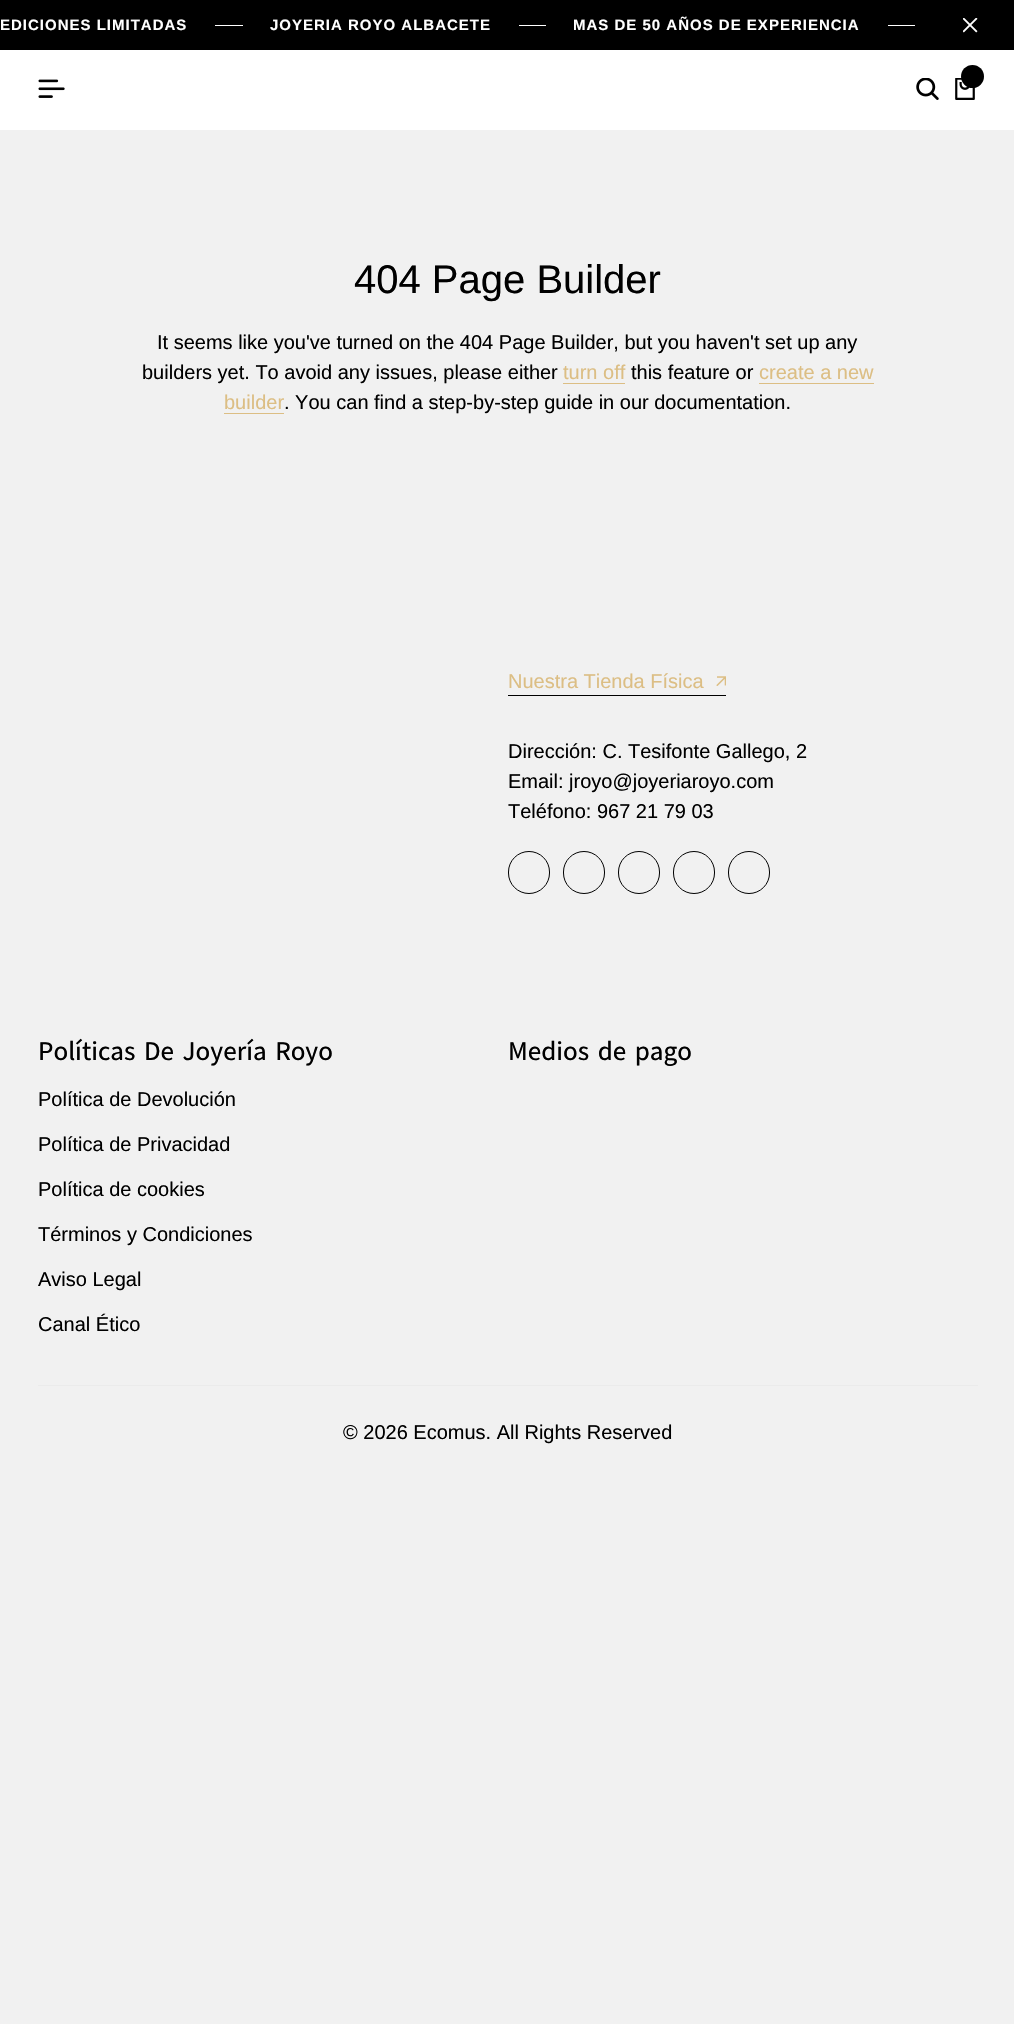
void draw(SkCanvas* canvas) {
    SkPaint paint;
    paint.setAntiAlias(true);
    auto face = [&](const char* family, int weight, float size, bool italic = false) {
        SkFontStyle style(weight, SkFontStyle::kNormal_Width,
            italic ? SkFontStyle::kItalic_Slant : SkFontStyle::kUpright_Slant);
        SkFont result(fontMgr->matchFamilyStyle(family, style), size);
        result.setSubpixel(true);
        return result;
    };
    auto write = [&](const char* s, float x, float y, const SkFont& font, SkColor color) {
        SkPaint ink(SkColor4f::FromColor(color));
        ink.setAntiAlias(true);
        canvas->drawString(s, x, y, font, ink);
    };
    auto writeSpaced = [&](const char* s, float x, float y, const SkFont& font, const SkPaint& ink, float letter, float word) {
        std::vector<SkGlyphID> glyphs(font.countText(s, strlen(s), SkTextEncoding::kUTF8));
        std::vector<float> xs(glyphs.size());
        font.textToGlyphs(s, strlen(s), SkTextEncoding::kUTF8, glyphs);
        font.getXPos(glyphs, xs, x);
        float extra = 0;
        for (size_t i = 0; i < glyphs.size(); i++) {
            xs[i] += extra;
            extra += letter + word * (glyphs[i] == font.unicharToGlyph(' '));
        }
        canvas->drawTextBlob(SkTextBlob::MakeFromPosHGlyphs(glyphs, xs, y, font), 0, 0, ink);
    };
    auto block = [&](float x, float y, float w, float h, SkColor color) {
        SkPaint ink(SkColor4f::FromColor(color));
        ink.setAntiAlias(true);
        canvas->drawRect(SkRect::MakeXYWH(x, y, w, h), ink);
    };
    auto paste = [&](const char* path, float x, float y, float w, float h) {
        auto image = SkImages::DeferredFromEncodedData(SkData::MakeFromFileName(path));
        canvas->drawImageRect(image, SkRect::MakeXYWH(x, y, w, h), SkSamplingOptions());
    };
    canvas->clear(SkColorSetRGB(241, 241, 241));
    block(0, 0, 1014, 50, SK_ColorBLACK);
    auto kFont1 = face("Liberation Sans", 700, 15);
    paint.setColor(SK_ColorWHITE);
    writeSpaced("EDICIONES LIMITADAS", 0, 30, kFont1, paint, 1, 0);
    block(215, 25, 28, 1, SK_ColorWHITE);
    writeSpaced("JOYERIA ROYO ALBACETE", 270, 30, kFont1, paint, 1, 0);
    block(519, 25, 27, 1, SK_ColorWHITE);
    writeSpaced("MAS DE 50 AÑOS DE EXPERIENCIA", 573, 30, kFont1, paint, 1, 0);
    block(888, 25, 27, 1, SK_ColorWHITE);
    paste("pic1.png", 963, 18, 15, 15);
    block(0, 50, 1014, 80, SK_ColorWHITE);
    paste("pic2.png", 38, 79, 27, 19);
    paste("pic3.png", 916, 78, 23, 22);
    paste("pic4.png", 955, 78, 20, 22);
    paint.setColor(SK_ColorBLACK);
    canvas->drawCircle(972.5f, 76.5f, 11.5f, paint);
    auto kFont2 = face("Liberation Sans", 400, 40);
    write("404 Page Builder", 354, 293, kFont2, SK_ColorBLACK);
    auto kFont3 = face("Liberation Sans", 400, 20);
    write("It seems like you've turned on the 404 Page Builder, but you haven't set up any", 157, 349, kFont3, SK_ColorBLACK);
    write("builders yet. To avoid any issues, please either", 142, 379, kFont3, SK_ColorBLACK);
    write("turn off", 563, 379, kFont3, SkColorSetRGB(220, 190, 132));
    block(563, 383, 62, 1, SkColorSetRGB(220, 190, 132));
    write("this feature or", 631, 379, kFont3, SK_ColorBLACK);
    write("create a new", 759, 379, kFont3, SkColorSetRGB(220, 190, 132));
    block(759, 383, 115, 1, SkColorSetRGB(220, 190, 132));
    write("builder", 224, 409, kFont3, SkColorSetRGB(220, 190, 132));
    block(224, 413, 60, 1, SkColorSetRGB(220, 190, 132));
    write(". You can find a step-by-step guide in our documentation.", 284, 409, kFont3, SK_ColorBLACK);
    block(508, 695, 218, 1, SK_ColorBLACK);
    write("Nuestra Tienda Física", 508, 688, kFont3, SkColorSetRGB(220, 190, 132));
    paste("pic5.png", 716, 676, 10, 10);
    write("Dirección: C. Tesifonte Gallego, 2", 508, 758, kFont3, SK_ColorBLACK);
    write("Email: jroyo@joyeriaroyo.com", 508, 788, kFont3, SK_ColorBLACK);
    write("Teléfono: 967 21 79 03", 508, 818, kFont3, SK_ColorBLACK);
    paint.setStyle(SkPaint::kStroke_Style);
    paint.setStrokeWidth(1);
    canvas->drawRoundRect(SkRect::MakeXYWH(508.5f, 851.5f, 41, 42), 20.5f, 20.5f, paint);
    canvas->drawRoundRect(SkRect::MakeXYWH(563.5f, 851.5f, 41, 42), 20.5f, 20.5f, paint);
    canvas->drawRoundRect(SkRect::MakeXYWH(618.5f, 851.5f, 41, 42), 20.5f, 20.5f, paint);
    canvas->drawRoundRect(SkRect::MakeXYWH(673.5f, 851.5f, 41, 42), 20.5f, 20.5f, paint);
    canvas->drawRoundRect(SkRect::MakeXYWH(728.5f, 851.5f, 41, 42), 20.5f, 20.5f, paint);
    auto kFont4 = face("Akatab", 500, 26.25f);
    write("Políticas De Joyería Royo", 38, 1060, kFont4, SK_ColorBLACK);
    write("Política de Devolución", 38, 1106, kFont3, SK_ColorBLACK);
    write("Política de Privacidad", 38, 1151, kFont3, SK_ColorBLACK);
    write("Política de cookies", 38, 1196, kFont3, SK_ColorBLACK);
    write("Términos y Condiciones", 38, 1241, kFont3, SK_ColorBLACK);
    write("Aviso Legal", 38, 1286, kFont3, SK_ColorBLACK);
    write("Canal Ético", 38, 1331, kFont3, SK_ColorBLACK);
    write("Medios de pago", 508, 1060, kFont4, SK_ColorBLACK);
    block(38, 1385, 940, 1, SkColorSetRGB(235, 235, 235));
    write("© 2026 Ecomus. All Rights Reserved", 343, 1439, kFont3, SK_ColorBLACK);
}
